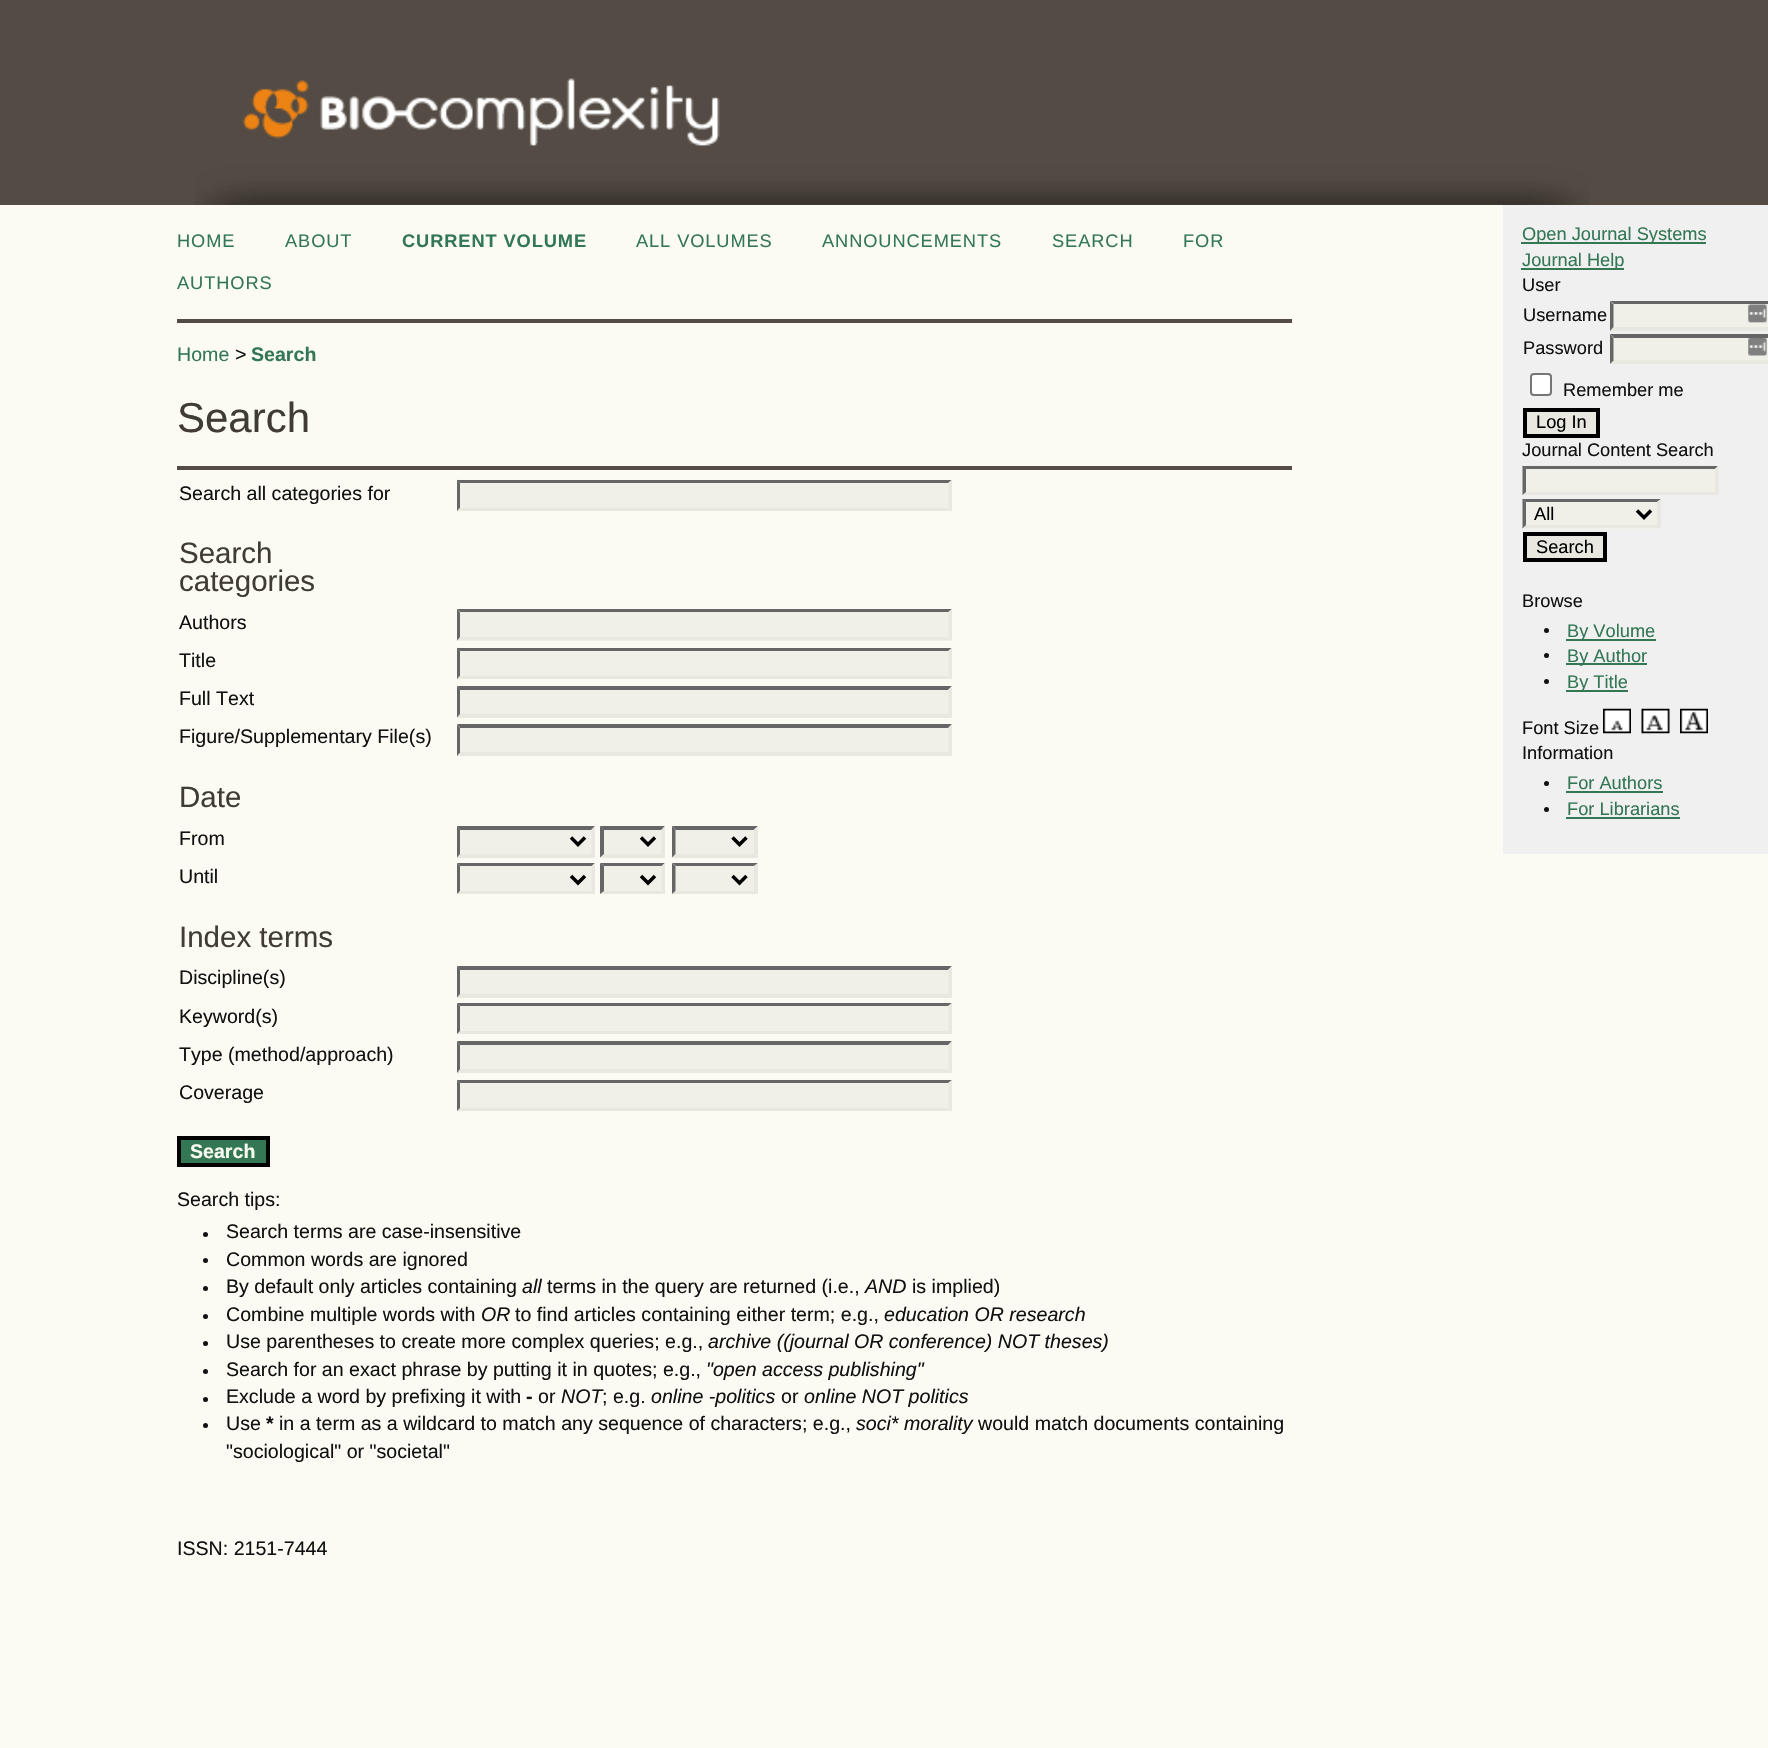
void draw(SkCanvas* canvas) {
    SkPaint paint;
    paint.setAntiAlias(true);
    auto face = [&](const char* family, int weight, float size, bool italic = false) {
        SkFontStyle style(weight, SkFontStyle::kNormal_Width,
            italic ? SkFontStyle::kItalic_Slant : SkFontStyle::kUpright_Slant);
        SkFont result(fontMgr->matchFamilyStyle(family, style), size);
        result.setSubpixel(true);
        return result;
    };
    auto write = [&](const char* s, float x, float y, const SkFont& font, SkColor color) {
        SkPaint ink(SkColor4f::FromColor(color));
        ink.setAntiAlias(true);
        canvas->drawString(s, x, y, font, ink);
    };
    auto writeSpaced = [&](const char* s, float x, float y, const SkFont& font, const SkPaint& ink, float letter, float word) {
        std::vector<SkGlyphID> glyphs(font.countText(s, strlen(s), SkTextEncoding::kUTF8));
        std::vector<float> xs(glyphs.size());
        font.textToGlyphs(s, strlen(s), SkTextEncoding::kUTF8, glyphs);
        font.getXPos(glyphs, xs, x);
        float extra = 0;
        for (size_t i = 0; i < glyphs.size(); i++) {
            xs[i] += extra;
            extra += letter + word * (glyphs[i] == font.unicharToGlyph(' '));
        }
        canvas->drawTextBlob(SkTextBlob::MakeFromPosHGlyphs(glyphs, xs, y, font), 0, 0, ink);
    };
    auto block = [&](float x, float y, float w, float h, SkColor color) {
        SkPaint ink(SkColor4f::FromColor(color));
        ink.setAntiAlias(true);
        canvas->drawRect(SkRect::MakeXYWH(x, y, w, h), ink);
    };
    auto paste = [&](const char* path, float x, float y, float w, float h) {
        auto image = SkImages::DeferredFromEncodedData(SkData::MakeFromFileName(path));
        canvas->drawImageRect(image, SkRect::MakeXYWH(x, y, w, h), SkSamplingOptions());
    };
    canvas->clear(SkColorSetRGB(251, 251, 243));
    block(0, 0, 1768, 205, SkColorSetRGB(84, 76, 68));
    paste("pic1.png", 195, 78, 1395, 127);
    block(177, 319, 1115, 4, SkColorSetRGB(84, 76, 68));
    auto kFont1 = face("Liberation Sans", 400, 18.25f);
    paint.setColor(SkColorSetRGB(51, 119, 85));
    writeSpaced("HOME", 177, 247, kFont1, paint, 0.9f, 0);
    writeSpaced("ABOUT", 285, 247, kFont1, paint, 0.9f, 0);
    auto kFont2 = face("Liberation Sans", 700, 18.25f);
    writeSpaced("CURRENT VOLUME", 402, 247, kFont2, paint, 0.9f, 0);
    writeSpaced("ALL VOLUMES", 636, 247, kFont1, paint, 0.9f, 0);
    writeSpaced("ANNOUNCEMENTS", 822, 247, kFont1, paint, 0.9f, 0);
    writeSpaced("SEARCH", 1052, 247, kFont1, paint, 0.9f, 0);
    writeSpaced("FOR", 1183, 247, kFont1, paint, 0.9f, 0);
    writeSpaced("AUTHORS", 177, 289, kFont1, paint, 0.9f, 0);
    auto kFont3 = face("Liberation Sans", 400, 19.6f);
    write("Home", 177, 361, kFont3, SkColorSetRGB(51, 119, 85));
    write(">", 235, 361, kFont3, SkColorSetRGB(17, 17, 17));
    auto kFont4 = face("Liberation Sans", 700, 19.6f);
    write("Search", 251, 361, kFont4, SkColorSetRGB(51, 119, 85));
    auto kFont5 = face("Liberation Sans", 400, 42);
    write("Search", 177, 432, kFont5, SkColorSetRGB(65, 59, 53));
    block(177, 466, 1115, 4, SkColorSetRGB(84, 76, 68));
    write("Search all categories for", 179, 500, kFont3, SkColorSetRGB(17, 17, 17));
    block(457, 480, 495, 31, SkColorSetRGB(240, 240, 232));
    paint.setColor(SkColorSetRGB(102, 102, 102));
    canvas->drawPath(SkPathBuilder().moveTo(457, 480).lineTo(952, 480).lineTo(948, 483).lineTo(460, 483).close().detach(), paint);
    paint.setColor(SkColorSetRGB(232, 232, 225));
    canvas->drawPath(SkPathBuilder().moveTo(952, 479.5f).lineTo(952, 511).lineTo(948.5f, 507.5f).lineTo(948.5f, 483).close().detach(), paint);
    canvas->drawPath(SkPathBuilder().moveTo(952, 511).lineTo(457, 511).lineTo(460, 508).lineTo(948, 508).close().detach(), paint);
    paint.setColor(SkColorSetRGB(102, 102, 102));
    canvas->drawPath(SkPathBuilder().moveTo(457, 511).lineTo(457, 479.5f).lineTo(460, 483).lineTo(460, 507.5f).close().detach(), paint);
    auto kFont6 = face("Liberation Sans", 400, 29.5f);
    write("Search", 179, 563, kFont6, SkColorSetRGB(65, 59, 53));
    write("categories", 179, 591, kFont6, SkColorSetRGB(65, 59, 53));
    write("Authors", 179, 629, kFont3, SkColorSetRGB(17, 17, 17));
    block(457, 609, 495, 32, SkColorSetRGB(240, 240, 232));
    canvas->drawPath(SkPathBuilder().moveTo(457, 609).lineTo(952, 609).lineTo(948, 612).lineTo(460, 612).close().detach(), paint);
    paint.setColor(SkColorSetRGB(232, 232, 225));
    canvas->drawPath(SkPathBuilder().moveTo(952, 609).lineTo(952, 640.5f).lineTo(948.5f, 637).lineTo(948.5f, 612.5f).close().detach(), paint);
    canvas->drawPath(SkPathBuilder().moveTo(952, 640).lineTo(457, 640).lineTo(460, 637).lineTo(948, 637).close().detach(), paint);
    paint.setColor(SkColorSetRGB(102, 102, 102));
    canvas->drawPath(SkPathBuilder().moveTo(457, 640.5f).lineTo(457, 609).lineTo(460, 612.5f).lineTo(460, 637).close().detach(), paint);
    write("Title", 179, 667, kFont3, SkColorSetRGB(17, 17, 17));
    block(457, 648, 495, 31, SkColorSetRGB(240, 240, 232));
    canvas->drawPath(SkPathBuilder().moveTo(457, 648).lineTo(952, 648).lineTo(948, 651).lineTo(460, 651).close().detach(), paint);
    paint.setColor(SkColorSetRGB(232, 232, 225));
    canvas->drawPath(SkPathBuilder().moveTo(952, 647.5f).lineTo(952, 679).lineTo(948.5f, 675.5f).lineTo(948.5f, 651).close().detach(), paint);
    canvas->drawPath(SkPathBuilder().moveTo(952, 679).lineTo(457, 679).lineTo(460, 676).lineTo(948, 676).close().detach(), paint);
    paint.setColor(SkColorSetRGB(102, 102, 102));
    canvas->drawPath(SkPathBuilder().moveTo(457, 679).lineTo(457, 647.5f).lineTo(460, 651).lineTo(460, 675.5f).close().detach(), paint);
    write("Full Text", 179, 705, kFont3, SkColorSetRGB(17, 17, 17));
    block(457, 686, 495, 32, SkColorSetRGB(240, 240, 232));
    canvas->drawPath(SkPathBuilder().moveTo(457, 686).lineTo(952, 686).lineTo(948, 690).lineTo(460, 690).close().detach(), paint);
    paint.setColor(SkColorSetRGB(232, 232, 225));
    canvas->drawPath(SkPathBuilder().moveTo(952, 686).lineTo(952, 717.5f).lineTo(948.5f, 714).lineTo(948.5f, 689.5f).close().detach(), paint);
    canvas->drawPath(SkPathBuilder().moveTo(952, 718).lineTo(457, 718).lineTo(460, 714).lineTo(948, 714).close().detach(), paint);
    paint.setColor(SkColorSetRGB(102, 102, 102));
    canvas->drawPath(SkPathBuilder().moveTo(457, 717.5f).lineTo(457, 686).lineTo(460, 689.5f).lineTo(460, 714).close().detach(), paint);
    write("Figure/Supplementary File(s)", 179, 743, kFont3, SkColorSetRGB(17, 17, 17));
    block(457, 725, 495, 31, SkColorSetRGB(240, 240, 232));
    canvas->drawPath(SkPathBuilder().moveTo(457, 724).lineTo(952, 724).lineTo(948, 728).lineTo(460, 728).close().detach(), paint);
    paint.setColor(SkColorSetRGB(232, 232, 225));
    canvas->drawPath(SkPathBuilder().moveTo(952, 724.5f).lineTo(952, 756).lineTo(948.5f, 752.5f).lineTo(948.5f, 728).close().detach(), paint);
    canvas->drawPath(SkPathBuilder().moveTo(952, 756).lineTo(457, 756).lineTo(460, 752).lineTo(948, 752).close().detach(), paint);
    paint.setColor(SkColorSetRGB(102, 102, 102));
    canvas->drawPath(SkPathBuilder().moveTo(457, 756).lineTo(457, 724.5f).lineTo(460, 728).lineTo(460, 752.5f).close().detach(), paint);
    write("Date", 179, 807, kFont6, SkColorSetRGB(65, 59, 53));
    write("From", 179, 845, kFont3, SkColorSetRGB(17, 17, 17));
    block(457, 826, 138, 32, SkColorSetRGB(240, 240, 232));
    canvas->drawPath(SkPathBuilder().moveTo(457, 826).lineTo(595, 826).lineTo(592, 830).lineTo(460, 830).close().detach(), paint);
    paint.setColor(SkColorSetRGB(232, 232, 225));
    canvas->drawPath(SkPathBuilder().moveTo(595, 826).lineTo(595, 857.5f).lineTo(591.5f, 854).lineTo(591.5f, 829.5f).close().detach(), paint);
    canvas->drawPath(SkPathBuilder().moveTo(595, 858).lineTo(457, 858).lineTo(460, 854).lineTo(592, 854).close().detach(), paint);
    paint.setColor(SkColorSetRGB(102, 102, 102));
    canvas->drawPath(SkPathBuilder().moveTo(457, 857.5f).lineTo(457, 826).lineTo(460, 829.5f).lineTo(460, 854).close().detach(), paint);
    paint.setStyle(SkPaint::kStroke_Style);
    paint.setStrokeWidth(3.5f);
    paint.setColor(SK_ColorBLACK);
    canvas->drawPath(SkPathBuilder().moveTo(571, 837.5f).lineTo(578, 844.5f).lineTo(585, 837.5f).detach(), paint);
    block(600, 826, 65, 32, SkColorSetRGB(240, 240, 232));
    paint.setStyle(SkPaint::kFill_Style);
    paint.setColor(SkColorSetRGB(102, 102, 102));
    canvas->drawPath(SkPathBuilder().moveTo(600, 826).lineTo(665, 826).lineTo(662, 830).lineTo(604, 830).close().detach(), paint);
    paint.setColor(SkColorSetRGB(232, 232, 225));
    canvas->drawPath(SkPathBuilder().moveTo(665, 826).lineTo(665, 857.5f).lineTo(661.5f, 854).lineTo(661.5f, 829.5f).close().detach(), paint);
    canvas->drawPath(SkPathBuilder().moveTo(665, 858).lineTo(600, 858).lineTo(604, 854).lineTo(662, 854).close().detach(), paint);
    paint.setColor(SkColorSetRGB(102, 102, 102));
    canvas->drawPath(SkPathBuilder().moveTo(600, 857.5f).lineTo(600, 826).lineTo(604, 829.5f).lineTo(604, 854).close().detach(), paint);
    paint.setStyle(SkPaint::kStroke_Style);
    paint.setColor(SK_ColorBLACK);
    canvas->drawPath(SkPathBuilder().moveTo(641, 837.5f).lineTo(648, 844.5f).lineTo(655, 837.5f).detach(), paint);
    block(672, 826, 86, 32, SkColorSetRGB(240, 240, 232));
    paint.setStyle(SkPaint::kFill_Style);
    paint.setColor(SkColorSetRGB(102, 102, 102));
    canvas->drawPath(SkPathBuilder().moveTo(672, 826).lineTo(758, 826).lineTo(754, 830).lineTo(676, 830).close().detach(), paint);
    paint.setColor(SkColorSetRGB(232, 232, 225));
    canvas->drawPath(SkPathBuilder().moveTo(758, 826).lineTo(758, 857.5f).lineTo(754, 854).lineTo(754, 829.5f).close().detach(), paint);
    canvas->drawPath(SkPathBuilder().moveTo(758, 858).lineTo(672, 858).lineTo(676, 854).lineTo(754, 854).close().detach(), paint);
    paint.setColor(SkColorSetRGB(102, 102, 102));
    canvas->drawPath(SkPathBuilder().moveTo(672, 857.5f).lineTo(672, 826).lineTo(675.5f, 829.5f).lineTo(675.5f, 854).close().detach(), paint);
    paint.setStyle(SkPaint::kStroke_Style);
    paint.setColor(SK_ColorBLACK);
    canvas->drawPath(SkPathBuilder().moveTo(732.5f, 837.5f).lineTo(739.5f, 844.5f).lineTo(746.5f, 837.5f).detach(), paint);
    write("Until", 179, 883, kFont3, SkColorSetRGB(17, 17, 17));
    block(457, 863, 138, 31, SkColorSetRGB(240, 240, 232));
    paint.setStyle(SkPaint::kFill_Style);
    paint.setColor(SkColorSetRGB(102, 102, 102));
    canvas->drawPath(SkPathBuilder().moveTo(457, 863).lineTo(595, 863).lineTo(592, 866).lineTo(460, 866).close().detach(), paint);
    paint.setColor(SkColorSetRGB(232, 232, 225));
    canvas->drawPath(SkPathBuilder().moveTo(595, 863).lineTo(595, 894).lineTo(591.5f, 891).lineTo(591.5f, 866).close().detach(), paint);
    canvas->drawPath(SkPathBuilder().moveTo(595, 894).lineTo(457, 894).lineTo(460, 891).lineTo(592, 891).close().detach(), paint);
    paint.setColor(SkColorSetRGB(102, 102, 102));
    canvas->drawPath(SkPathBuilder().moveTo(457, 894).lineTo(457, 863).lineTo(460, 866).lineTo(460, 891).close().detach(), paint);
    paint.setStyle(SkPaint::kStroke_Style);
    paint.setColor(SK_ColorBLACK);
    canvas->drawPath(SkPathBuilder().moveTo(571, 876).lineTo(578, 883).lineTo(585, 876).detach(), paint);
    block(600, 863, 65, 31, SkColorSetRGB(240, 240, 232));
    paint.setStyle(SkPaint::kFill_Style);
    paint.setColor(SkColorSetRGB(102, 102, 102));
    canvas->drawPath(SkPathBuilder().moveTo(600, 863).lineTo(665, 863).lineTo(662, 866).lineTo(604, 866).close().detach(), paint);
    paint.setColor(SkColorSetRGB(232, 232, 225));
    canvas->drawPath(SkPathBuilder().moveTo(665, 863).lineTo(665, 894).lineTo(661.5f, 891).lineTo(661.5f, 866).close().detach(), paint);
    canvas->drawPath(SkPathBuilder().moveTo(665, 894).lineTo(600, 894).lineTo(604, 891).lineTo(662, 891).close().detach(), paint);
    paint.setColor(SkColorSetRGB(102, 102, 102));
    canvas->drawPath(SkPathBuilder().moveTo(600, 894).lineTo(600, 863).lineTo(604, 866).lineTo(604, 891).close().detach(), paint);
    paint.setStyle(SkPaint::kStroke_Style);
    paint.setColor(SK_ColorBLACK);
    canvas->drawPath(SkPathBuilder().moveTo(641, 876).lineTo(648, 883).lineTo(655, 876).detach(), paint);
    block(672, 863, 86, 31, SkColorSetRGB(240, 240, 232));
    paint.setStyle(SkPaint::kFill_Style);
    paint.setColor(SkColorSetRGB(102, 102, 102));
    canvas->drawPath(SkPathBuilder().moveTo(672, 863).lineTo(758, 863).lineTo(754, 866).lineTo(676, 866).close().detach(), paint);
    paint.setColor(SkColorSetRGB(232, 232, 225));
    canvas->drawPath(SkPathBuilder().moveTo(758, 863).lineTo(758, 894).lineTo(754, 891).lineTo(754, 866).close().detach(), paint);
    canvas->drawPath(SkPathBuilder().moveTo(758, 894).lineTo(672, 894).lineTo(676, 891).lineTo(754, 891).close().detach(), paint);
    paint.setColor(SkColorSetRGB(102, 102, 102));
    canvas->drawPath(SkPathBuilder().moveTo(672, 894).lineTo(672, 863).lineTo(675.5f, 866).lineTo(675.5f, 891).close().detach(), paint);
    paint.setStyle(SkPaint::kStroke_Style);
    paint.setColor(SK_ColorBLACK);
    canvas->drawPath(SkPathBuilder().moveTo(732.5f, 876).lineTo(739.5f, 883).lineTo(746.5f, 876).detach(), paint);
    write("Index terms", 179, 947, kFont6, SkColorSetRGB(65, 59, 53));
    write("Discipline(s)", 179, 984, kFont3, SkColorSetRGB(17, 17, 17));
    block(457, 966, 495, 32, SkColorSetRGB(240, 240, 232));
    paint.setStyle(SkPaint::kFill_Style);
    paint.setColor(SkColorSetRGB(102, 102, 102));
    canvas->drawPath(SkPathBuilder().moveTo(457, 966).lineTo(952, 966).lineTo(948, 970).lineTo(460, 970).close().detach(), paint);
    paint.setColor(SkColorSetRGB(232, 232, 225));
    canvas->drawPath(SkPathBuilder().moveTo(952, 966).lineTo(952, 997.5f).lineTo(948.5f, 994).lineTo(948.5f, 969.5f).close().detach(), paint);
    canvas->drawPath(SkPathBuilder().moveTo(952, 998).lineTo(457, 998).lineTo(460, 994).lineTo(948, 994).close().detach(), paint);
    paint.setColor(SkColorSetRGB(102, 102, 102));
    canvas->drawPath(SkPathBuilder().moveTo(457, 997.5f).lineTo(457, 966).lineTo(460, 969.5f).lineTo(460, 994).close().detach(), paint);
    write("Keyword(s)", 179, 1023, kFont3, SkColorSetRGB(17, 17, 17));
    block(457, 1003, 495, 31, SkColorSetRGB(240, 240, 232));
    canvas->drawPath(SkPathBuilder().moveTo(457, 1003).lineTo(952, 1003).lineTo(948, 1006).lineTo(460, 1006).close().detach(), paint);
    paint.setColor(SkColorSetRGB(232, 232, 225));
    canvas->drawPath(SkPathBuilder().moveTo(952, 1003).lineTo(952, 1034).lineTo(948.5f, 1031).lineTo(948.5f, 1006).close().detach(), paint);
    canvas->drawPath(SkPathBuilder().moveTo(952, 1034).lineTo(457, 1034).lineTo(460, 1031).lineTo(948, 1031).close().detach(), paint);
    paint.setColor(SkColorSetRGB(102, 102, 102));
    canvas->drawPath(SkPathBuilder().moveTo(457, 1034).lineTo(457, 1003).lineTo(460, 1006).lineTo(460, 1031).close().detach(), paint);
    write("Type (method/approach)", 179, 1061, kFont3, SkColorSetRGB(17, 17, 17));
    block(457, 1041, 495, 32, SkColorSetRGB(240, 240, 232));
    canvas->drawPath(SkPathBuilder().moveTo(457, 1041).lineTo(952, 1041).lineTo(948, 1045).lineTo(460, 1045).close().detach(), paint);
    paint.setColor(SkColorSetRGB(232, 232, 225));
    canvas->drawPath(SkPathBuilder().moveTo(952, 1041).lineTo(952, 1073).lineTo(948.5f, 1069).lineTo(948.5f, 1045).close().detach(), paint);
    canvas->drawPath(SkPathBuilder().moveTo(952, 1073).lineTo(457, 1073).lineTo(460, 1069).lineTo(948, 1069).close().detach(), paint);
    paint.setColor(SkColorSetRGB(102, 102, 102));
    canvas->drawPath(SkPathBuilder().moveTo(457, 1073).lineTo(457, 1041).lineTo(460, 1045).lineTo(460, 1069).close().detach(), paint);
    write("Coverage", 179, 1099, kFont3, SkColorSetRGB(17, 17, 17));
    block(457, 1080, 495, 31, SkColorSetRGB(240, 240, 232));
    canvas->drawPath(SkPathBuilder().moveTo(457, 1080).lineTo(952, 1080).lineTo(948, 1083).lineTo(460, 1083).close().detach(), paint);
    paint.setColor(SkColorSetRGB(232, 232, 225));
    canvas->drawPath(SkPathBuilder().moveTo(952, 1080).lineTo(952, 1111).lineTo(948.5f, 1108).lineTo(948.5f, 1083).close().detach(), paint);
    canvas->drawPath(SkPathBuilder().moveTo(952, 1111).lineTo(457, 1111).lineTo(460, 1108).lineTo(948, 1108).close().detach(), paint);
    paint.setColor(SkColorSetRGB(102, 102, 102));
    canvas->drawPath(SkPathBuilder().moveTo(457, 1111).lineTo(457, 1080).lineTo(460, 1083).lineTo(460, 1108).close().detach(), paint);
    paint.setColor(SkColorSetRGB(51, 119, 85));
    canvas->drawRect(SkRect::MakeXYWH(179, 1138, 89, 27), paint);
    paint.setStyle(SkPaint::kStroke_Style);
    paint.setStrokeWidth(4);
    paint.setColor(SK_ColorBLACK);
    canvas->drawRect(SkRect::MakeXYWH(179, 1138, 89, 27), paint);
    write("Search", 190, 1158, kFont4, SkColorSetRGB(251, 251, 243));
    write("Search tips:", 177, 1206, kFont3, SkColorSetRGB(17, 17, 17));
    paint.setStyle(SkPaint::kFill_Style);
    paint.setColor(SkColorSetRGB(17, 17, 17));
    canvas->drawCircle(205.5f, 1234.5f, 2.5f, paint);
    write("Search terms are case-insensitive", 226, 1238, kFont3, SkColorSetRGB(17, 17, 17));
    canvas->drawCircle(205.5f, 1260.5f, 2.5f, paint);
    write("Common words are ignored", 226, 1266, kFont3, SkColorSetRGB(17, 17, 17));
    canvas->drawCircle(205.5f, 1288.5f, 2.5f, paint);
    write("By default only articles containing", 226, 1293, kFont3, SkColorSetRGB(17, 17, 17));
    auto kFont7 = face("Liberation Sans", 400, 19.6f, true);
    write("all", 522, 1293, kFont7, SkColorSetRGB(17, 17, 17));
    write("terms in the query are returned (i.e.,", 547, 1293, kFont3, SkColorSetRGB(17, 17, 17));
    write("AND", 865, 1293, kFont7, SkColorSetRGB(17, 17, 17));
    write("is implied)", 912, 1293, kFont3, SkColorSetRGB(17, 17, 17));
    canvas->drawCircle(205.5f, 1316.5f, 2.5f, paint);
    write("Combine multiple words with", 226, 1321, kFont3, SkColorSetRGB(17, 17, 17));
    write("OR", 481, 1321, kFont7, SkColorSetRGB(17, 17, 17));
    write("to find articles containing either term; e.g.,", 515, 1321, kFont3, SkColorSetRGB(17, 17, 17));
    write("education OR research", 884, 1321, kFont7, SkColorSetRGB(17, 17, 17));
    canvas->drawCircle(205.5f, 1343.5f, 2.5f, paint);
    write("Use parentheses to create more complex queries; e.g.,", 226, 1348, kFont3, SkColorSetRGB(17, 17, 17));
    write("archive ((journal OR conference) NOT theses)", 708, 1348, kFont7, SkColorSetRGB(17, 17, 17));
    canvas->drawCircle(205.5f, 1371.5f, 2.5f, paint);
    write("Search for an exact phrase by putting it in quotes; e.g.,", 226, 1376, kFont3, SkColorSetRGB(17, 17, 17));
    write("\"open access publishing\"", 706, 1376, kFont7, SkColorSetRGB(17, 17, 17));
    canvas->drawCircle(205.5f, 1399.5f, 2.5f, paint);
    write("Exclude a word by prefixing it with", 226, 1403, kFont3, SkColorSetRGB(17, 17, 17));
    write("-", 526, 1403, kFont4, SkColorSetRGB(17, 17, 17));
    write("or", 538, 1403, kFont3, SkColorSetRGB(17, 17, 17));
    write("NOT", 561, 1403, kFont7, SkColorSetRGB(17, 17, 17));
    write("; e.g.", 602, 1403, kFont3, SkColorSetRGB(17, 17, 17));
    write("online -politics", 651, 1403, kFont7, SkColorSetRGB(17, 17, 17));
    write("or", 781, 1403, kFont3, SkColorSetRGB(17, 17, 17));
    write("online NOT politics", 804, 1403, kFont7, SkColorSetRGB(17, 17, 17));
    write("Use", 226, 1430, kFont3, SkColorSetRGB(17, 17, 17));
    write("*", 266, 1430, kFont4, SkColorSetRGB(17, 17, 17));
    write("in a term as a wildcard to match any sequence of characters; e.g.,", 279, 1430, kFont3, SkColorSetRGB(17, 17, 17));
    write("soci* morality", 856, 1430, kFont7, SkColorSetRGB(17, 17, 17));
    write("would match documents containing", 978, 1430, kFont3, SkColorSetRGB(17, 17, 17));
    canvas->drawCircle(205.5f, 1425.5f, 2.5f, paint);
    write("\"sociological\" or \"societal\"", 226, 1458, kFont3, SkColorSetRGB(17, 17, 17));
    write("ISSN: 2151-7444", 177, 1555, kFont3, SkColorSetRGB(17, 17, 17));
    block(1503, 205, 265, 649, SkColorSetRGB(240, 240, 240));
    block(1521, 242, 185, 2, SkColorSetRGB(51, 119, 85));
    write("Open Journal Systems", 1522, 240, kFont1, SkColorSetRGB(51, 119, 85));
    block(1521, 268, 103, 2, SkColorSetRGB(51, 119, 85));
    write("Journal Help", 1522, 266, kFont1, SkColorSetRGB(51, 119, 85));
    write("User", 1522, 291, kFont1, SkColorSetRGB(17, 17, 17));
    write("Username", 1523, 321, kFont1, SkColorSetRGB(17, 17, 17));
    block(1610, 301, 158, 30, SkColorSetRGB(240, 240, 232));
    paste("pic2.png", 1748, 304, 19, 19);
    paint.setColor(SkColorSetRGB(102, 102, 102));
    canvas->drawPath(SkPathBuilder().moveTo(1610, 301).lineTo(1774, 301).lineTo(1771, 304).lineTo(1614, 304).close().detach(), paint);
    paint.setColor(SkColorSetRGB(232, 232, 225));
    canvas->drawPath(SkPathBuilder().moveTo(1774, 331).lineTo(1610, 331).lineTo(1614, 327).lineTo(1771, 327).close().detach(), paint);
    paint.setColor(SkColorSetRGB(102, 102, 102));
    canvas->drawPath(SkPathBuilder().moveTo(1610, 331).lineTo(1610, 301).lineTo(1613.5f, 304.5f).lineTo(1613.5f, 327).close().detach(), paint);
    write("Password", 1523, 354, kFont1, SkColorSetRGB(17, 17, 17));
    block(1610, 334, 158, 30, SkColorSetRGB(240, 240, 232));
    paste("pic3.png", 1748, 338, 19, 18);
    canvas->drawPath(SkPathBuilder().moveTo(1610, 334).lineTo(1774, 334).lineTo(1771, 338).lineTo(1614, 338).close().detach(), paint);
    paint.setColor(SkColorSetRGB(232, 232, 225));
    canvas->drawPath(SkPathBuilder().moveTo(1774, 364).lineTo(1610, 364).lineTo(1614, 360).lineTo(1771, 360).close().detach(), paint);
    paint.setColor(SkColorSetRGB(102, 102, 102));
    canvas->drawPath(SkPathBuilder().moveTo(1610, 364).lineTo(1610, 334).lineTo(1613.5f, 338).lineTo(1613.5f, 360.5f).close().detach(), paint);
    paint.setColor(SK_ColorWHITE);
    canvas->drawRoundRect(SkRect::MakeXYWH(1531, 374, 20, 21), 3, 3, paint);
    paint.setStyle(SkPaint::kStroke_Style);
    paint.setStrokeWidth(2);
    paint.setColor(SkColorSetRGB(118, 118, 118));
    canvas->drawRoundRect(SkRect::MakeXYWH(1531, 374, 20, 21), 3, 3, paint);
    write("Remember me", 1563, 396, kFont1, SkColorSetRGB(17, 17, 17));
    paint.setStyle(SkPaint::kFill_Style);
    paint.setColor(SkColorSetRGB(232, 232, 225));
    canvas->drawRect(SkRect::MakeXYWH(1525, 410, 73, 26), paint);
    paint.setStyle(SkPaint::kStroke_Style);
    paint.setStrokeWidth(4);
    paint.setColor(SK_ColorBLACK);
    canvas->drawRect(SkRect::MakeXYWH(1525, 410, 73, 26), paint);
    write("Log In", 1536, 428, kFont1, SK_ColorBLACK);
    write("Journal Content Search", 1522, 456, kFont1, SkColorSetRGB(17, 17, 17));
    block(1523, 466, 196, 29, SkColorSetRGB(240, 240, 232));
    paint.setStyle(SkPaint::kFill_Style);
    paint.setColor(SkColorSetRGB(102, 102, 102));
    canvas->drawPath(SkPathBuilder().moveTo(1522, 466).lineTo(1718, 466).lineTo(1715, 469).lineTo(1526, 469).close().detach(), paint);
    paint.setColor(SkColorSetRGB(232, 232, 225));
    canvas->drawPath(SkPathBuilder().moveTo(1718.5f, 465.5f).lineTo(1718.5f, 495).lineTo(1715, 492).lineTo(1715, 469).close().detach(), paint);
    canvas->drawPath(SkPathBuilder().moveTo(1718, 495).lineTo(1522, 495).lineTo(1526, 492).lineTo(1715, 492).close().detach(), paint);
    paint.setColor(SkColorSetRGB(102, 102, 102));
    canvas->drawPath(SkPathBuilder().moveTo(1522.5f, 495).lineTo(1522.5f, 465.5f).lineTo(1526, 469).lineTo(1526, 492).close().detach(), paint);
    block(1523, 499, 138, 30, SkColorSetRGB(240, 240, 232));
    canvas->drawPath(SkPathBuilder().moveTo(1522, 499).lineTo(1661, 499).lineTo(1657, 502).lineTo(1526, 502).close().detach(), paint);
    paint.setColor(SkColorSetRGB(232, 232, 225));
    canvas->drawPath(SkPathBuilder().moveTo(1661, 499).lineTo(1661, 528.5f).lineTo(1657, 525).lineTo(1657, 502).close().detach(), paint);
    canvas->drawPath(SkPathBuilder().moveTo(1661, 528).lineTo(1522, 528).lineTo(1526, 525).lineTo(1657, 525).close().detach(), paint);
    paint.setColor(SkColorSetRGB(102, 102, 102));
    canvas->drawPath(SkPathBuilder().moveTo(1522.5f, 528.5f).lineTo(1522.5f, 499).lineTo(1526, 502).lineTo(1526, 525).close().detach(), paint);
    paint.setStyle(SkPaint::kStroke_Style);
    paint.setStrokeWidth(3.5f);
    paint.setColor(SK_ColorBLACK);
    canvas->drawPath(SkPathBuilder().moveTo(1637, 510.5f).lineTo(1644, 517.5f).lineTo(1651, 510.5f).detach(), paint);
    write("All", 1534, 520, kFont1, SK_ColorBLACK);
    paint.setStyle(SkPaint::kFill_Style);
    paint.setColor(SkColorSetRGB(232, 232, 225));
    canvas->drawRect(SkRect::MakeXYWH(1525, 534, 80, 26), paint);
    paint.setStyle(SkPaint::kStroke_Style);
    paint.setStrokeWidth(4);
    paint.setColor(SK_ColorBLACK);
    canvas->drawRect(SkRect::MakeXYWH(1525, 534, 80, 26), paint);
    write("Search", 1536, 553, kFont1, SK_ColorBLACK);
    write("Browse", 1522, 607, kFont1, SkColorSetRGB(17, 17, 17));
    paint.setStyle(SkPaint::kFill_Style);
    paint.setColor(SkColorSetRGB(17, 17, 17));
    canvas->drawCircle(1546.5f, 630.5f, 2.5f, paint);
    block(1566, 639, 90, 2, SkColorSetRGB(51, 119, 85));
    write("By Volume", 1567, 637, kFont1, SkColorSetRGB(51, 119, 85));
    canvas->drawCircle(1546.5f, 655.5f, 2.5f, paint);
    block(1566, 663, 81, 2, SkColorSetRGB(51, 119, 85));
    write("By Author", 1567, 662, kFont1, SkColorSetRGB(51, 119, 85));
    canvas->drawCircle(1546.5f, 681.5f, 2.5f, paint);
    block(1566, 690, 62, 2, SkColorSetRGB(51, 119, 85));
    write("By Title", 1567, 688, kFont1, SkColorSetRGB(51, 119, 85));
    write("Font Size", 1522, 734, kFont1, SkColorSetRGB(17, 17, 17));
    paste("pic4.png", 1603, 708, 28, 26);
    paste("pic5.png", 1641, 708, 29, 26);
    paste("pic6.png", 1680, 708, 28, 26);
    write("Information", 1522, 759, kFont1, SkColorSetRGB(17, 17, 17));
    canvas->drawCircle(1546.5f, 783.5f, 2.5f, paint);
    write("For Authors", 1567, 789, kFont1, SkColorSetRGB(51, 119, 85));
    block(1566, 791, 97, 2, SkColorSetRGB(51, 119, 85));
    canvas->drawCircle(1546.5f, 809.5f, 2.5f, paint);
    write("For Librarians", 1567, 815, kFont1, SkColorSetRGB(51, 119, 85));
    block(1566, 817, 114, 2, SkColorSetRGB(51, 119, 85));
}
